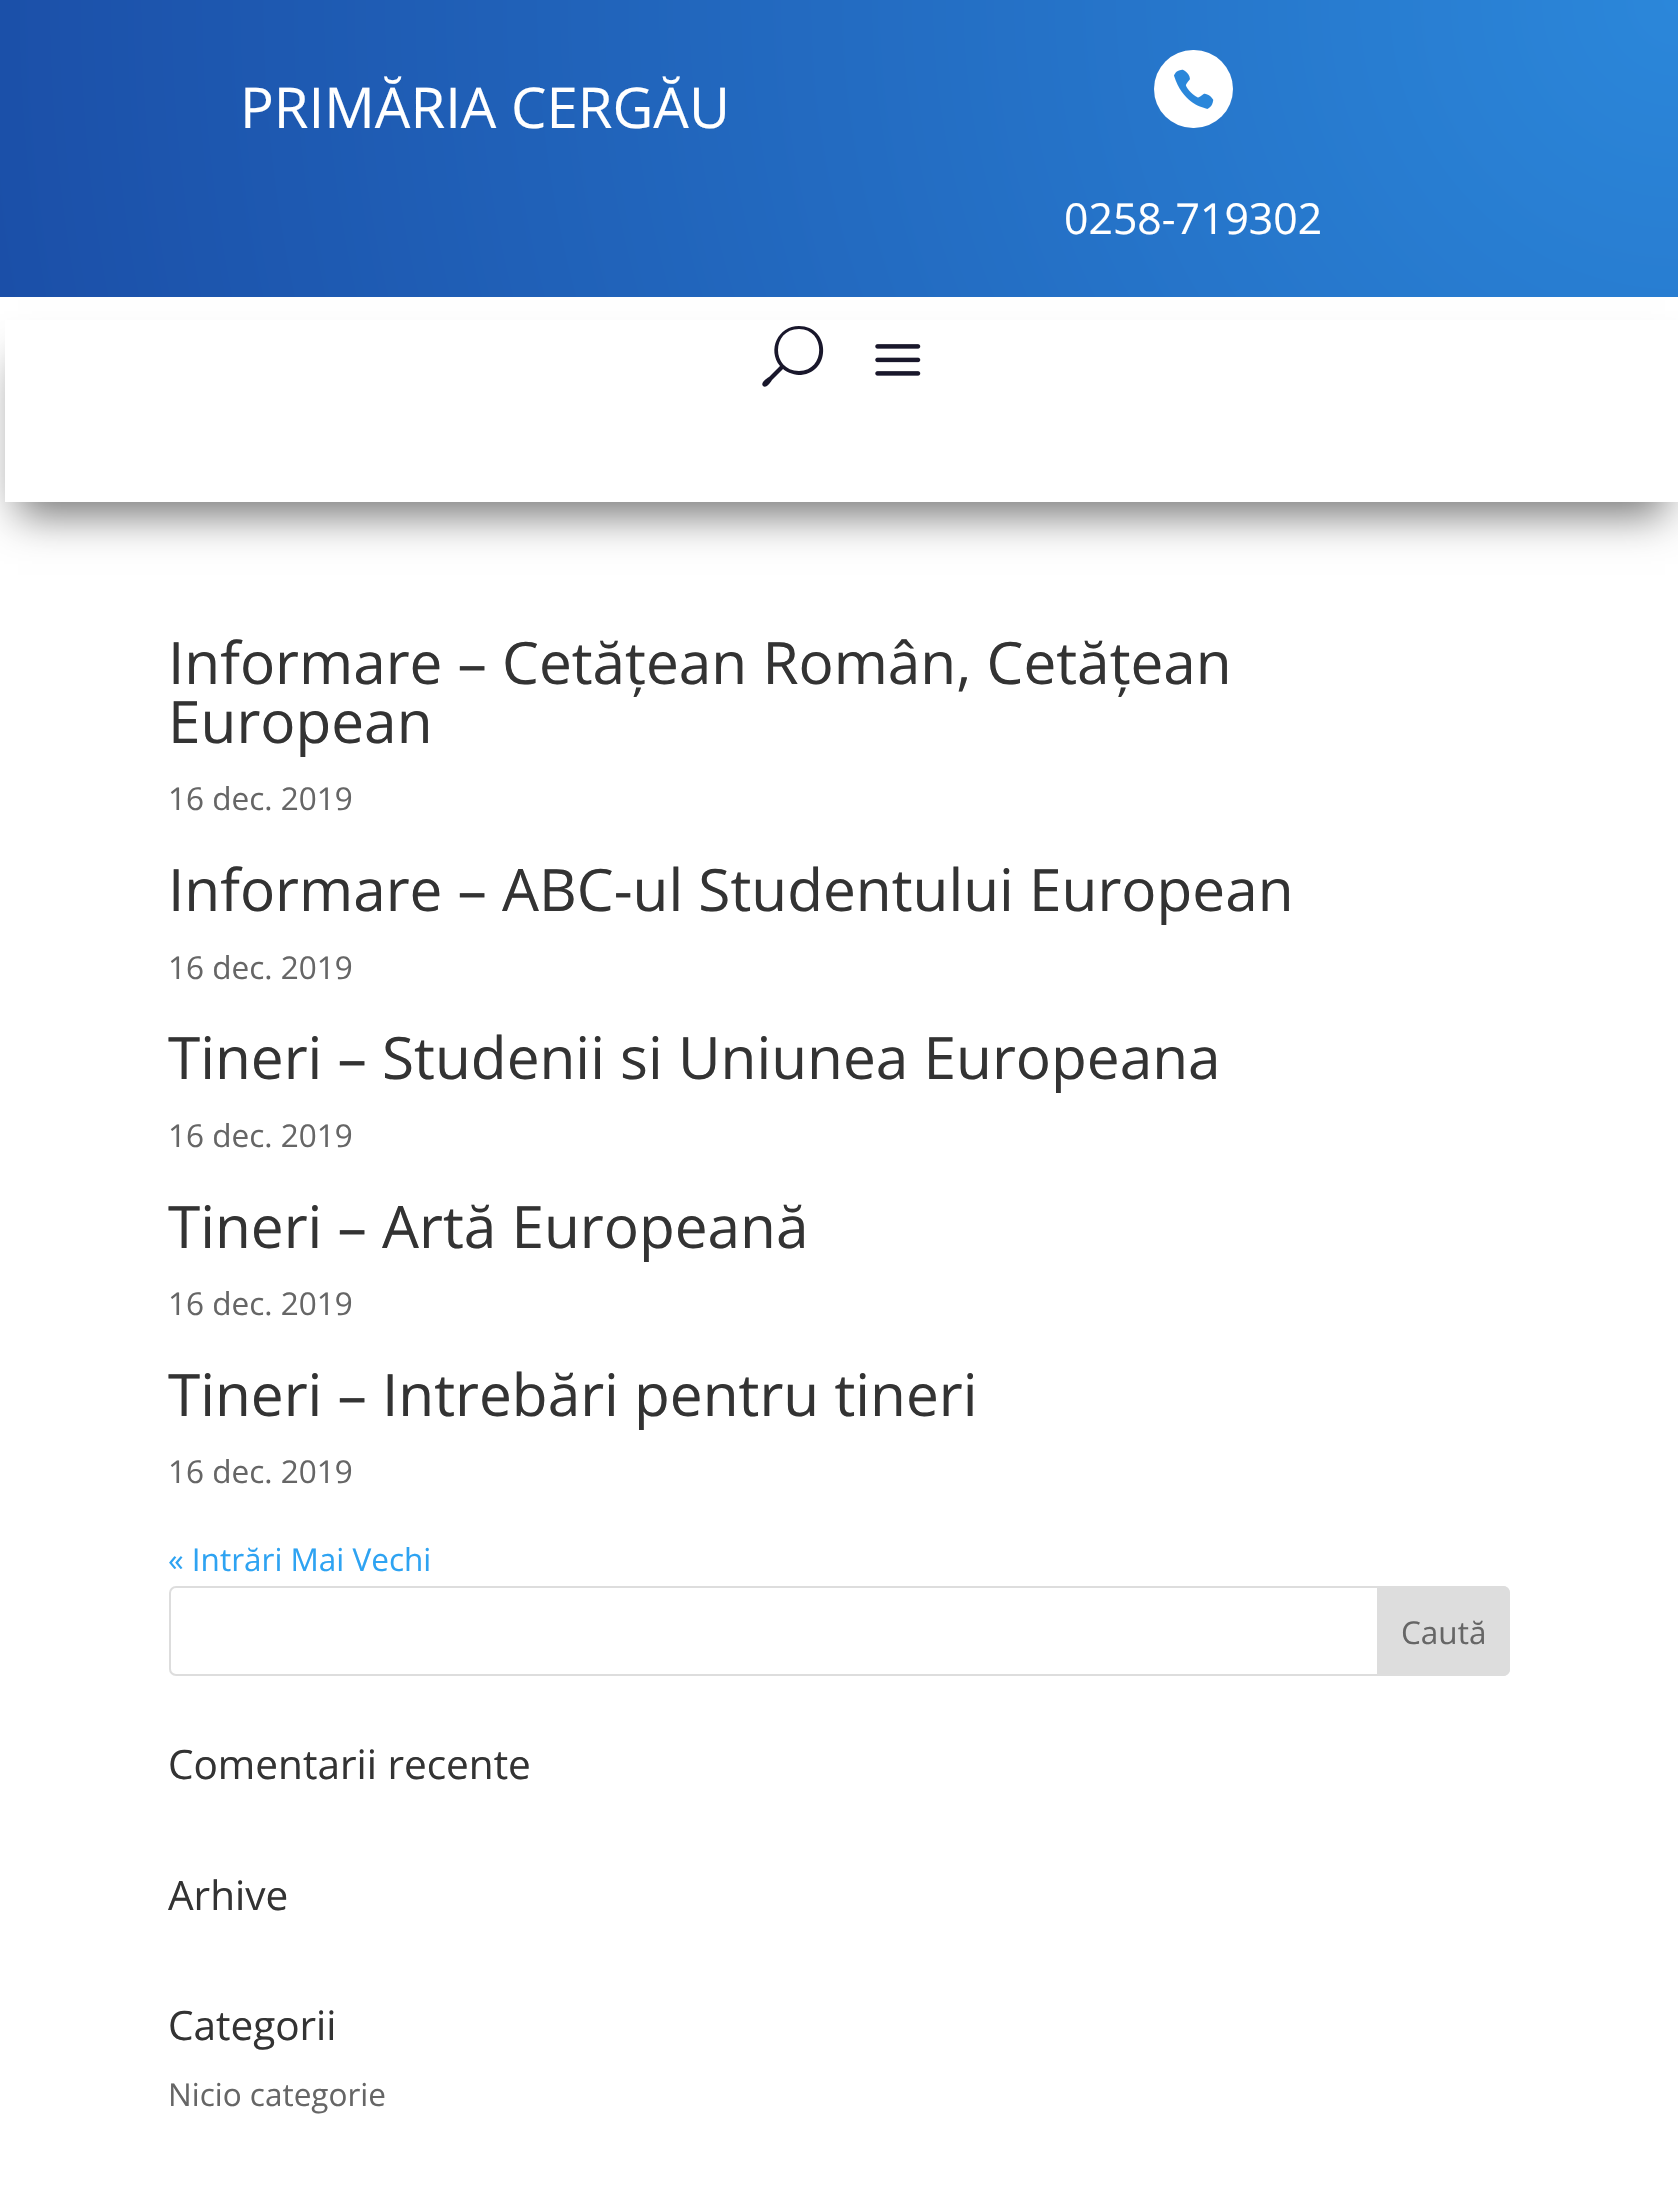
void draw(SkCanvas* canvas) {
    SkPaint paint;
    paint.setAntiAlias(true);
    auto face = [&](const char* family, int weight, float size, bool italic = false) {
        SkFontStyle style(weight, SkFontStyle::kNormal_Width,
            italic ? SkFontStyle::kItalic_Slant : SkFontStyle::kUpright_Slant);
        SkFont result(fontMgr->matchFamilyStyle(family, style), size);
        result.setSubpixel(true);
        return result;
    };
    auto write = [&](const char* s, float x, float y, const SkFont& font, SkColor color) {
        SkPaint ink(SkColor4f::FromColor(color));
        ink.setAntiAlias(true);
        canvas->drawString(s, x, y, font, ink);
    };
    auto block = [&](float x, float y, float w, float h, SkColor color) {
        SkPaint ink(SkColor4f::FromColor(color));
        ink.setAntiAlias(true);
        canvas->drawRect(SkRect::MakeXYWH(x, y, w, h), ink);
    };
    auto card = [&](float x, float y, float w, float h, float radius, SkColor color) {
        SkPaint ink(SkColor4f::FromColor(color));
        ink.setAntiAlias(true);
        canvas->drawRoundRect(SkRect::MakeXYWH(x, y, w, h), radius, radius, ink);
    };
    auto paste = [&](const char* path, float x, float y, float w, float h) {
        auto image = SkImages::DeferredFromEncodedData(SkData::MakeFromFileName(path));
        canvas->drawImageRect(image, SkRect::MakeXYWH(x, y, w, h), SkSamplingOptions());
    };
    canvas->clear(SK_ColorWHITE);
    {
        const SkColor colors[] = {SkColorSetRGB(43, 135, 218), SkColorSetRGB(27, 79, 168)};
        const float stops[] = {0, 1};
        paint.setShader(SkGradientShader::MakeRadial({1679, 0}, 1705, colors, stops, 2, SkTileMode::kClamp));
        paint.setAlpha(255);
    }
    canvas->drawRect(SkRect::MakeXYWH(0, 0, 1678, 297), paint);
    auto kFont1 = face("Open Sans", 400, 56.25f);
    write("PRIMĂRIA CERGĂU", 240, 128, kFont1, SK_ColorWHITE);
    card(1154, 50, 79, 78, 39, SK_ColorWHITE);
    paste("pic1.png", 1174, 69, 40, 40);
    auto kFont2 = face("Open Sans", 400, 42.75f);
    write("0258-719302", 1064, 234, kFont2, SK_ColorWHITE);
    paint.setShader(nullptr);
    paint.setColor(SkColorSetARGB(138, 0, 0, 0));
    paint.setMaskFilter(SkMaskFilter::MakeBlur(kNormal_SkBlurStyle, 20));
    canvas->drawRect(SkRect::MakeXYWH(18, 360, 1647, 155), paint);
    paint.setMaskFilter(nullptr);
    block(5, 320, 1673, 182, SK_ColorWHITE);
    paint.setColor(SkColorSetRGB(25, 23, 43));
    canvas->drawPath(SkPathBuilder().moveTo(799, 326).cubicTo(778, 326, 767, 350, 780, 366).lineTo(769, 377).cubicTo(767, 378, 760, 383, 763, 386).cubicTo(766, 389, 771, 382, 772, 380).lineTo(783, 369).cubicTo(788, 373, 795, 375, 801, 375).cubicTo(832, 372, 830, 326, 799, 326).close().moveTo(799, 371).cubicTo(771, 371, 771, 329, 799, 329).cubicTo(826, 329, 826, 371, 799, 371).close().detach(), paint);
    paste("pic2.png", 875, 344, 46, 32);
    auto kFont3 = face("Open Sans", 400, 58.5f);
    write("Informare – Cetățean Român, Cetățean", 168, 684, kFont3, SkColorSetRGB(51, 51, 51));
    write("European", 168, 743, kFont3, SkColorSetRGB(51, 51, 51));
    auto kFont4 = face("Open Sans", 400, 31.5f);
    write("16 dec. 2019", 168, 810, kFont4, SkColorSetRGB(102, 102, 102));
    write("Informare – ABC-ul Studentului European", 168, 911, kFont3, SkColorSetRGB(51, 51, 51));
    write("16 dec. 2019", 168, 979, kFont4, SkColorSetRGB(102, 102, 102));
    write("Tineri – Studenii si Uniunea Europeana", 168, 1079, kFont3, SkColorSetRGB(51, 51, 51));
    write("16 dec. 2019", 168, 1147, kFont4, SkColorSetRGB(102, 102, 102));
    write("Tineri – Artă Europeană", 168, 1248, kFont3, SkColorSetRGB(51, 51, 51));
    write("16 dec. 2019", 168, 1315, kFont4, SkColorSetRGB(102, 102, 102));
    write("Tineri – Intrebări pentru tineri", 168, 1416, kFont3, SkColorSetRGB(51, 51, 51));
    write("16 dec. 2019", 168, 1483, kFont4, SkColorSetRGB(102, 102, 102));
    write("« Intrări Mai Vechi", 168, 1571, kFont4, SkColorSetRGB(46, 163, 242));
    paint.setStyle(SkPaint::kStroke_Style);
    paint.setStrokeWidth(2);
    paint.setColor(SkColorSetRGB(221, 221, 221));
    canvas->drawRoundRect(SkRect::MakeXYWH(170, 1587, 1339, 88), 6, 6, paint);
    paint.setStyle(SkPaint::kFill_Style);
    canvas->drawPath(SkPathBuilder().moveTo(1378, 1587).lineTo(1503, 1587).cubicTo(1506.5f, 1587, 1509, 1589.5f, 1509, 1593).lineTo(1509, 1669).cubicTo(1509, 1672.5f, 1506.5f, 1675, 1503, 1675).lineTo(1378, 1675).close().detach(), paint);
    paint.setStyle(SkPaint::kStroke_Style);
    canvas->drawPath(SkPathBuilder().moveTo(1378, 1587).lineTo(1503, 1587).cubicTo(1506.5f, 1587, 1509, 1589.5f, 1509, 1593).lineTo(1509, 1669).cubicTo(1509, 1672.5f, 1506.5f, 1675, 1503, 1675).lineTo(1378, 1675).close().detach(), paint);
    write("Caută", 1401, 1644, kFont4, SkColorSetRGB(102, 102, 102));
    auto kFont5 = face("Open Sans", 400, 40.5f);
    write("Comentarii recente", 168, 1779, kFont5, SkColorSetRGB(51, 51, 51));
    write("Arhive", 168, 1910, kFont5, SkColorSetRGB(51, 51, 51));
    write("Categorii", 168, 2040, kFont5, SkColorSetRGB(51, 51, 51));
    write("Nicio categorie", 168, 2106, kFont4, SkColorSetRGB(102, 102, 102));
}
